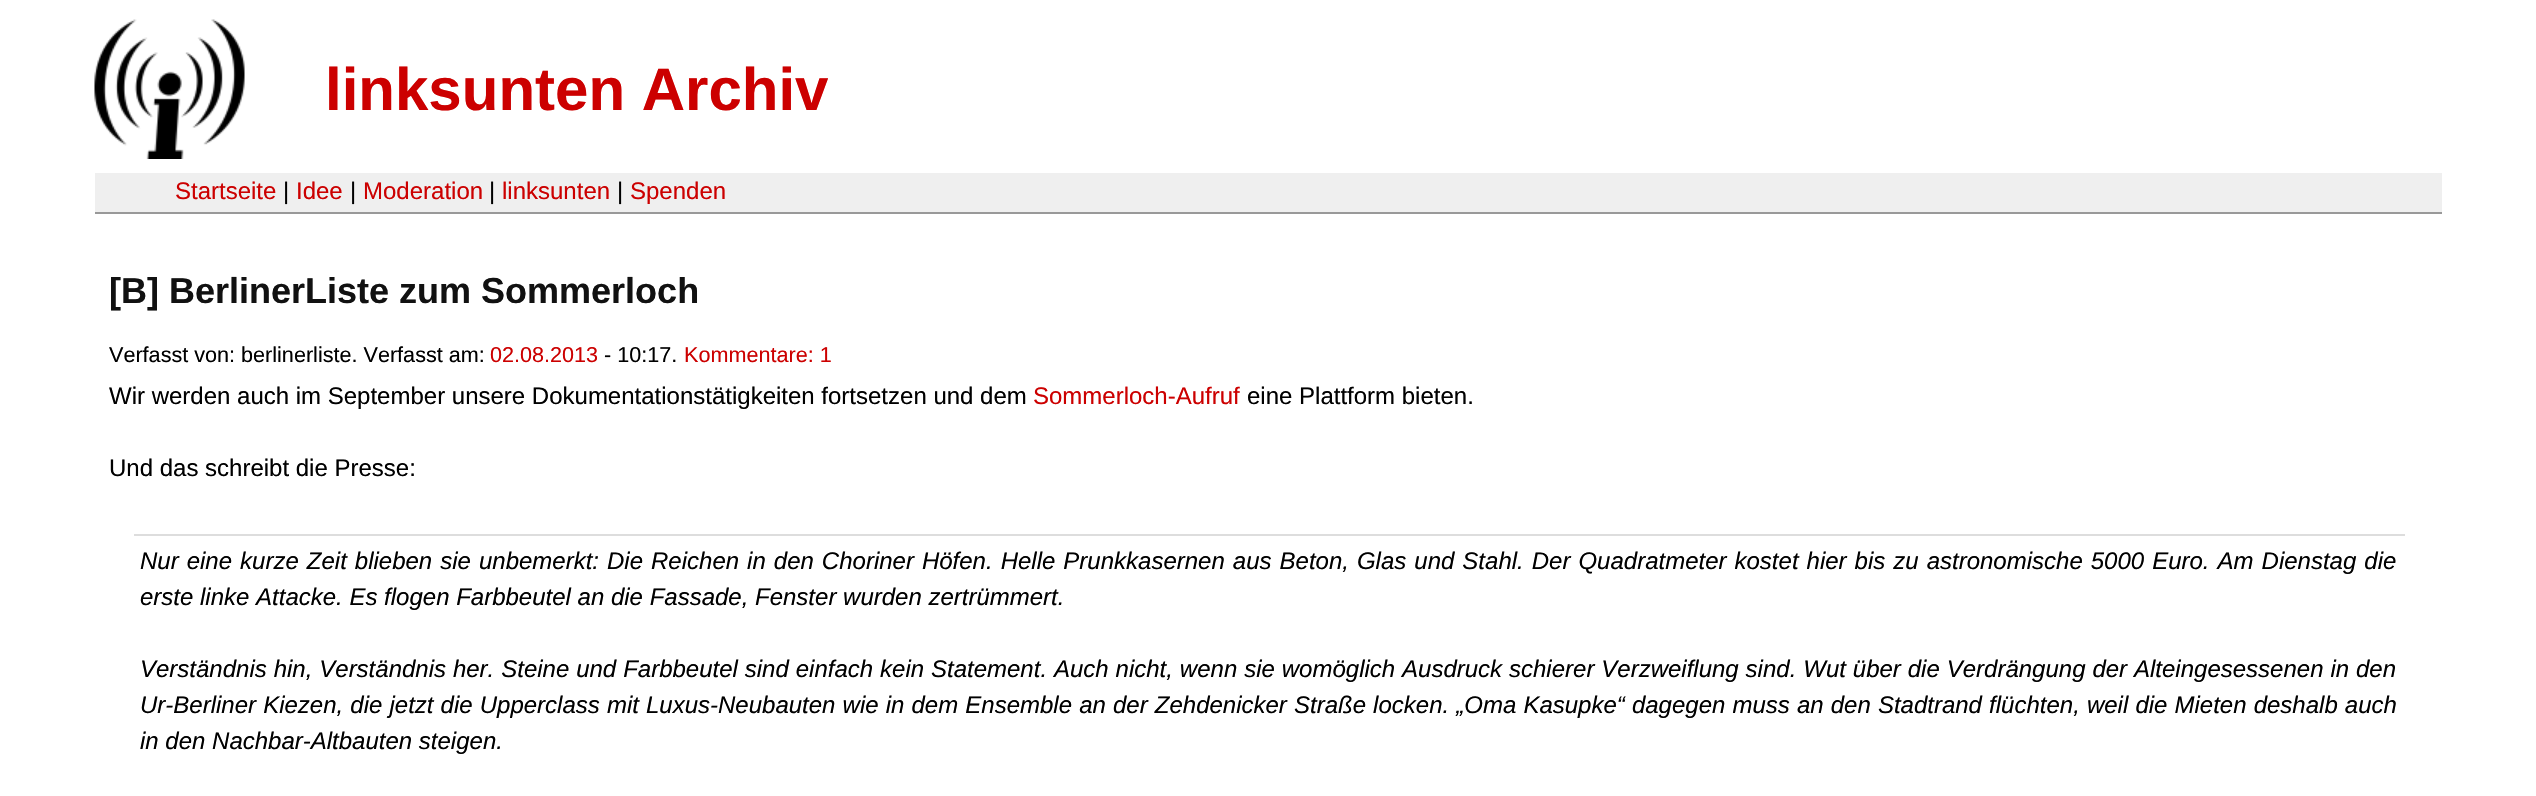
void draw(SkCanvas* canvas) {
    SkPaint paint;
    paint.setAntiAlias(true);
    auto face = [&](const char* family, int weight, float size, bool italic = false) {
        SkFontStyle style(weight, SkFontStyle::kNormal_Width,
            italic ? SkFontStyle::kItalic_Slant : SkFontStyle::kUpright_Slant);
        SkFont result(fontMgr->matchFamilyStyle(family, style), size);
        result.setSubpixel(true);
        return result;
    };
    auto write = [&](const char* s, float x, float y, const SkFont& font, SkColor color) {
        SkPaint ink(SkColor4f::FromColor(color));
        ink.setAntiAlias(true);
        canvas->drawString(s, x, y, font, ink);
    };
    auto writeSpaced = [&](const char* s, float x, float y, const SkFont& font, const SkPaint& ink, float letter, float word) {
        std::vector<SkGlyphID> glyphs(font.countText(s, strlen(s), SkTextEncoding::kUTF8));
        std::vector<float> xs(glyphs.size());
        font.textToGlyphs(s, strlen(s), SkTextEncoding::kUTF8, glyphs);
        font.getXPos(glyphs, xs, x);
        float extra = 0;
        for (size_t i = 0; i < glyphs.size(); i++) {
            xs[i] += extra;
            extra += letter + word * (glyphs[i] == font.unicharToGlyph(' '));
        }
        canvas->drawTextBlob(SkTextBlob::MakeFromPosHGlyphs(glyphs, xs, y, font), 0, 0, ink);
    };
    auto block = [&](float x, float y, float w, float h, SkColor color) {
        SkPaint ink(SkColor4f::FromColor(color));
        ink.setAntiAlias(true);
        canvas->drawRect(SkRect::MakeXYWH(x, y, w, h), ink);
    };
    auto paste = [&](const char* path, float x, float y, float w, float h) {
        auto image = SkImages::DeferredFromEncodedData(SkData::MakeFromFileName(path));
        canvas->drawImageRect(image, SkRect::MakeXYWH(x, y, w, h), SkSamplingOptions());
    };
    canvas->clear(SK_ColorWHITE);
    paste("pic1.png", 94, 19, 151, 140);
    auto kFont1 = face("Liberation Sans", 700, 60);
    write("linksunten Archiv", 325, 110, kFont1, SkColorSetRGB(204, 0, 0));
    block(95, 173, 2347, 39, SkColorSetRGB(239, 239, 239));
    block(95, 212, 2347, 2, SkColorSetRGB(153, 153, 153));
    auto kFont2 = face("Liberation Sans", 400, 24);
    write("Startseite", 175, 199, kFont2, SkColorSetRGB(204, 0, 0));
    write("|", 283, 199, kFont2, SK_ColorBLACK);
    write("Idee", 296, 199, kFont2, SkColorSetRGB(204, 0, 0));
    write("|", 350, 199, kFont2, SK_ColorBLACK);
    write("Moderation", 363, 199, kFont2, SkColorSetRGB(204, 0, 0));
    write("|", 489, 199, kFont2, SK_ColorBLACK);
    write("linksunten", 502, 199, kFont2, SkColorSetRGB(204, 0, 0));
    write("|", 617, 199, kFont2, SK_ColorBLACK);
    write("Spenden", 630, 199, kFont2, SkColorSetRGB(204, 0, 0));
    auto kFont3 = face("Liberation Sans", 700, 36);
    write("[B] BerlinerListe zum Sommerloch", 109, 303, kFont3, SkColorSetRGB(17, 17, 17));
    auto kFont4 = face("Liberation Sans", 400, 21.6f);
    write("Verfasst von: berlinerliste. Verfasst am:", 109, 362, kFont4, SK_ColorBLACK);
    write("02.08.2013", 490, 362, kFont4, SkColorSetRGB(204, 0, 0));
    write("- 10:17.", 604, 362, kFont4, SK_ColorBLACK);
    write("Kommentare: 1", 684, 362, kFont4, SkColorSetRGB(204, 0, 0));
    write("Wir werden auch im September unsere Dokumentationstätigkeiten fortsetzen und dem", 109, 404, kFont2, SK_ColorBLACK);
    write("Sommerloch-Aufruf", 1033, 404, kFont2, SkColorSetRGB(204, 0, 0));
    write("eine Plattform bieten.", 1247, 404, kFont2, SK_ColorBLACK);
    write("Und das schreibt die Presse:", 109, 476, kFont2, SK_ColorBLACK);
    block(134, 534, 2271, 2, SkColorSetRGB(221, 221, 221));
    auto kFont5 = face("Liberation Sans", 400, 24, true);
    paint.setColor(SK_ColorBLACK);
    writeSpaced("Nur eine kurze Zeit blieben sie unbemerkt: Die Reichen in den Choriner Höfen. Helle Prunkkasernen aus Beton, Glas und Stahl. Der Quadratmeter kostet hier bis zu astronomische 5000 Euro. Am Dienstag die", 140, 569, kFont5, paint, 0, 1.35f);
    write("erste linke Attacke. Es flogen Farbbeutel an die Fassade, Fenster wurden zertrümmert.", 140, 605, kFont5, SK_ColorBLACK);
    writeSpaced("Verständnis hin, Verständnis her. Steine und Farbbeutel sind einfach kein Statement. Auch nicht, wenn sie womöglich Ausdruck schierer Verzweiflung sind. Wut über die Verdrängung der Alteingesessenen in den", 140, 677, kFont5, paint, 0, 0.25f);
    writeSpaced("Ur-Berliner Kiezen, die jetzt die Upperclass mit Luxus-Neubauten wie in dem Ensemble an der Zehdenicker Straße locken. „Oma Kasupke“ dagegen muss an den Stadtrand flüchten, weil die Mieten deshalb auch", 140, 713, kFont5, paint, 0, 0.45f);
    write("in den Nachbar-Altbauten steigen.", 140, 749, kFont5, SK_ColorBLACK);
}
